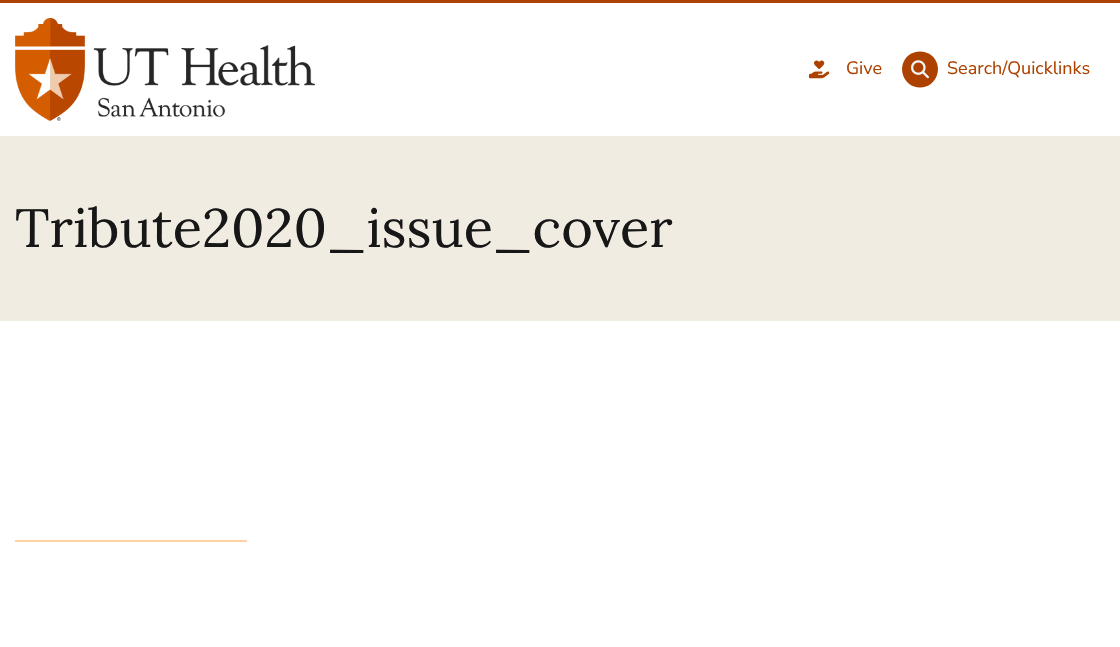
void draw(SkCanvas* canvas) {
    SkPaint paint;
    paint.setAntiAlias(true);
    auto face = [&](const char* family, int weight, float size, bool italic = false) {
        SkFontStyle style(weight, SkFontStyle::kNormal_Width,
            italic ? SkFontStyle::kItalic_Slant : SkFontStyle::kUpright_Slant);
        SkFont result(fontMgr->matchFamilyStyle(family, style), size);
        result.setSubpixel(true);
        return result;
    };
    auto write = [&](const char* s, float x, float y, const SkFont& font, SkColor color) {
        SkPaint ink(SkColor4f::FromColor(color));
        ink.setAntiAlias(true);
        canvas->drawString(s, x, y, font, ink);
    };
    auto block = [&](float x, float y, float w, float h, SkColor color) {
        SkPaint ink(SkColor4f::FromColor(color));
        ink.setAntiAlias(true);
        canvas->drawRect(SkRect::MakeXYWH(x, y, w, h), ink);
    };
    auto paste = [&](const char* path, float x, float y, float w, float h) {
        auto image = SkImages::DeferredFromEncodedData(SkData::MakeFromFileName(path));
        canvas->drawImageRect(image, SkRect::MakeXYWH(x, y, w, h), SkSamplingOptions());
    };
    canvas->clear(SK_ColorWHITE);
    block(0, 0, 1120, 3, SkColorSetRGB(173, 66, 0));
    paste("pic1.png", 15, 18, 300, 103);
    paste("pic2.png", 809, 60, 21, 19);
    auto kFont1 = face("Nunito Sans", 400, 18);
    write("Give", 846, 74, kFont1, SkColorSetRGB(173, 66, 0));
    paint.setColor(SkColorSetRGB(173, 66, 0));
    canvas->drawPath(SkPathBuilder().moveTo(920, 87.5f).cubicTo(937, 87.5f, 944.5f, 65.5f, 931, 55).cubicTo(928, 53, 924, 51.5f, 920, 51.5f).cubicTo(916, 51.5f, 912, 53, 909, 55).cubicTo(895.5f, 65.5f, 903, 87.5f, 920, 87.5f).close().detach(), paint);
    paste("pic3.png", 911, 60, 18, 19);
    write("Search/Quicklinks", 947, 74, kFont1, SkColorSetRGB(173, 66, 0));
    block(0, 136, 1120, 185, SkColorSetRGB(240, 236, 226));
    auto kFont2 = face("Lora", 400, 54);
    write("Tribute2020_issue_cover", 15, 247, kFont2, SkColorSetRGB(23, 23, 23));
    block(15, 540, 232, 2, SkColorSetRGB(255, 209, 163));
}
